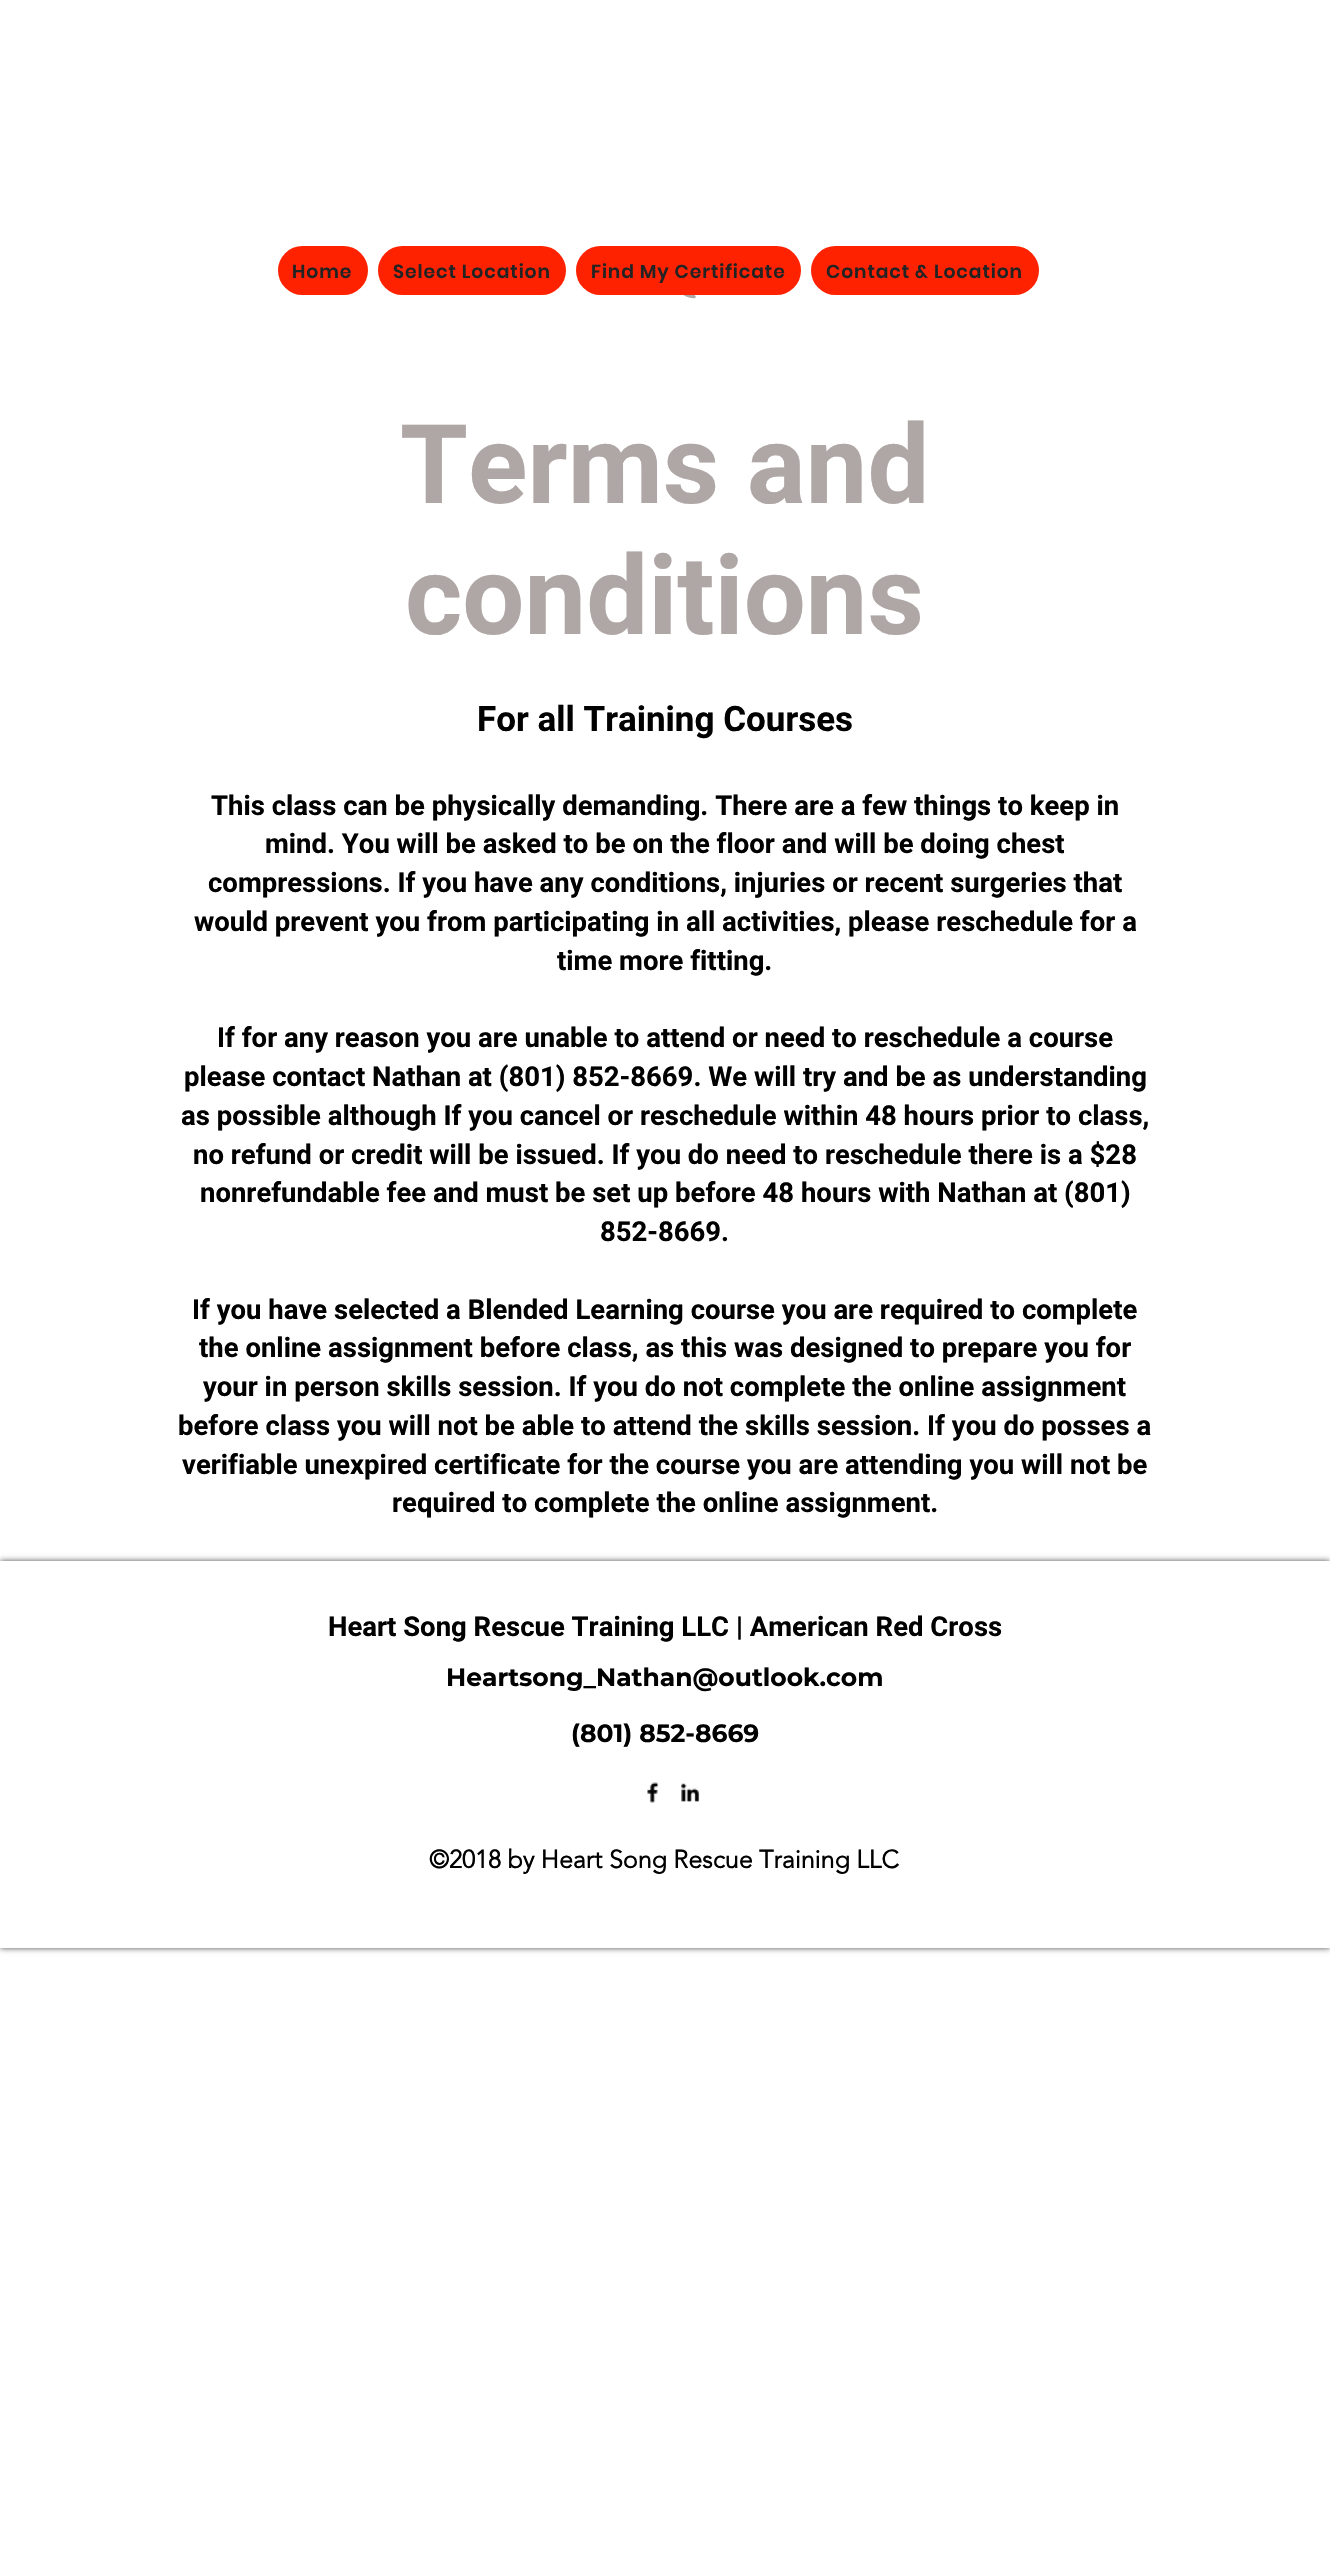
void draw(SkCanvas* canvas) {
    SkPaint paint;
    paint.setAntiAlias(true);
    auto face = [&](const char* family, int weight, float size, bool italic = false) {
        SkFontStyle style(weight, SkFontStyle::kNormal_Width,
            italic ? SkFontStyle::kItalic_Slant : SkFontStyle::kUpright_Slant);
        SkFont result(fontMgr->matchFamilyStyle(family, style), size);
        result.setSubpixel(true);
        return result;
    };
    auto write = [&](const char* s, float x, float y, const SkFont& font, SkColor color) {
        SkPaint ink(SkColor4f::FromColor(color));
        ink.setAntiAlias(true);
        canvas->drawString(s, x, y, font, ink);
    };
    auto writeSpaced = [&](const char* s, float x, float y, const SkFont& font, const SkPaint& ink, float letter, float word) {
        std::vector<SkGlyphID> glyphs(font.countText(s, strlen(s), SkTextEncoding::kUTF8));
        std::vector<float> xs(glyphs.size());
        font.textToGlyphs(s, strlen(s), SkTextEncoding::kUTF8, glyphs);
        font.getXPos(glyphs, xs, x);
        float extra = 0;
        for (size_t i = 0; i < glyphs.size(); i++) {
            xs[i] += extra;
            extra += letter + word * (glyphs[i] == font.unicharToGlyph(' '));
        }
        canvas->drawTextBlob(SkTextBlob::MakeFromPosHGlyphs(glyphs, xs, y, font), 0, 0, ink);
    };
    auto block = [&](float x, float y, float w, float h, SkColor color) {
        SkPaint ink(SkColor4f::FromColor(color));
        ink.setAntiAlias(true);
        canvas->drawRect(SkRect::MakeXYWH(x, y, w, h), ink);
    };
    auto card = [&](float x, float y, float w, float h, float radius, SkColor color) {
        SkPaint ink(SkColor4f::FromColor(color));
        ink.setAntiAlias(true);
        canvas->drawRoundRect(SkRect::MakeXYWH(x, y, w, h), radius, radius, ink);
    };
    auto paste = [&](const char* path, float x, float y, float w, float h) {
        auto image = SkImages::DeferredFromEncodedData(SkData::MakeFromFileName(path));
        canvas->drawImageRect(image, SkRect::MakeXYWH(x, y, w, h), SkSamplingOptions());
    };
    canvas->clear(SK_ColorWHITE);
    card(278, 246, 90, 49, 24.5f, SkColorSetRGB(255, 34, 0));
    auto kFont1 = face("Poppins", 600, 18.75f);
    paint.setColor(SkColorSetRGB(36, 35, 35));
    writeSpaced("Home", 292, 278, kFont1, paint, 0.9f, 0);
    card(378, 246, 188, 49, 24.5f, SkColorSetRGB(255, 34, 0));
    writeSpaced("Select Location", 393, 278, kFont1, paint, 0.9f, 0);
    card(576, 246, 225, 49, 24.5f, SkColorSetRGB(255, 34, 0));
    writeSpaced("Find My Certificate", 591, 278, kFont1, paint, 0.9f, 0);
    card(811, 246, 228, 49, 24.5f, SkColorSetRGB(255, 34, 0));
    writeSpaced("Contact & Location", 826, 278, kFont1, paint, 0.9f, 0);
    paste("pic1.png", 683, 295, 13, 4);
    auto kFont2 = face("Roboto", 700, 110);
    write("Terms and", 400, 503, kFont2, SkColorSetRGB(175, 167, 166));
    write("conditions", 405, 634, kFont2, SkColorSetRGB(175, 167, 166));
    auto kFont3 = face("Roboto", 700, 35);
    write("For all Training Courses", 477, 731, kFont3, SK_ColorBLACK);
    auto kFont4 = face("Roboto", 700, 27.5f);
    write("This class can be physically demanding. There are a few things to keep in", 211, 815, kFont4, SK_ColorBLACK);
    write("mind. You will be asked to be on the floor and will be doing chest", 265, 853, kFont4, SK_ColorBLACK);
    write("compressions. If you have any conditions, injuries or recent surgeries that", 208, 892, kFont4, SK_ColorBLACK);
    write("would prevent you from participating in all activities, please reschedule for a", 194, 931, kFont4, SK_ColorBLACK);
    write("time more fitting.", 557, 970, kFont4, SK_ColorBLACK);
    write("If for any reason you are unable to attend or need to reschedule a course", 217, 1047, kFont4, SK_ColorBLACK);
    write("please contact Nathan at (801) 852-8669. We will try and be as understanding", 184, 1086, kFont4, SK_ColorBLACK);
    write("as possible although If you cancel or reschedule within 48 hours prior to class,", 181, 1125, kFont4, SK_ColorBLACK);
    write("no refund or credit will be issued. If you do need to reschedule there is a $28", 193, 1164, kFont4, SK_ColorBLACK);
    write("nonrefundable fee and must be set up before 48 hours with Nathan at (801)", 200, 1202, kFont4, SK_ColorBLACK);
    write("852-8669.", 600, 1241, kFont4, SK_ColorBLACK);
    write("If you have selected a Blended Learning course you are required to complete", 192, 1319, kFont4, SK_ColorBLACK);
    write("the online assignment before class, as this was designed to prepare you for", 199, 1357, kFont4, SK_ColorBLACK);
    write("your in person skills session. If you do not complete the online assignment", 203, 1396, kFont4, SK_ColorBLACK);
    write("before class you will not be able to attend the skills session. If you do posses a", 178, 1435, kFont4, SK_ColorBLACK);
    write("verifiable unexpired certificate for the course you are attending you will not be", 182, 1474, kFont4, SK_ColorBLACK);
    write("required to complete the online assignment.", 392, 1512, kFont4, SK_ColorBLACK);
    canvas->save();
    canvas->clipPath(SkPathBuilder(SkPathFillType::kEvenOdd).moveTo(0, 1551).lineTo(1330, 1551).lineTo(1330, 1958).lineTo(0, 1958).close().moveTo(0, 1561).lineTo(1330, 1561).lineTo(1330, 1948).lineTo(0, 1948).close().detach(), true);
    paint.setColor(SkColorSetARGB(179, 0, 0, 0));
    paint.setMaskFilter(SkMaskFilter::MakeBlur(kNormal_SkBlurStyle, 3));
    canvas->drawRect(SkRect::MakeXYWH(0, 1561, 1330, 387), paint);
    paint.setMaskFilter(nullptr);
    canvas->restore();
    block(0, 1561, 1330, 1, SkColorSetARGB(38, 255, 255, 255));
    block(0, 1947, 1330, 1, SkColorSetARGB(189, 255, 255, 255));
    write("Heart Song Rescue Training LLC | American Red Cross", 328, 1636, kFont4, SK_ColorBLACK);
    auto kFont5 = face("Montserrat", 700, 25);
    write("Heartsong_Nathan@outlook.com", 446, 1686, kFont5, SK_ColorBLACK);
    write("(801) 852-8669", 571, 1742, kFont5, SK_ColorBLACK);
    paste("pic2.png", 647, 1782, 12, 21);
    paste("pic3.png", 681, 1783, 19, 19);
    auto kFont6 = face("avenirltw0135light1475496", 700, 25);
    write("©2018 by Heart Song Rescue Training LLC", 429, 1868, kFont6, SK_ColorBLACK);
}
